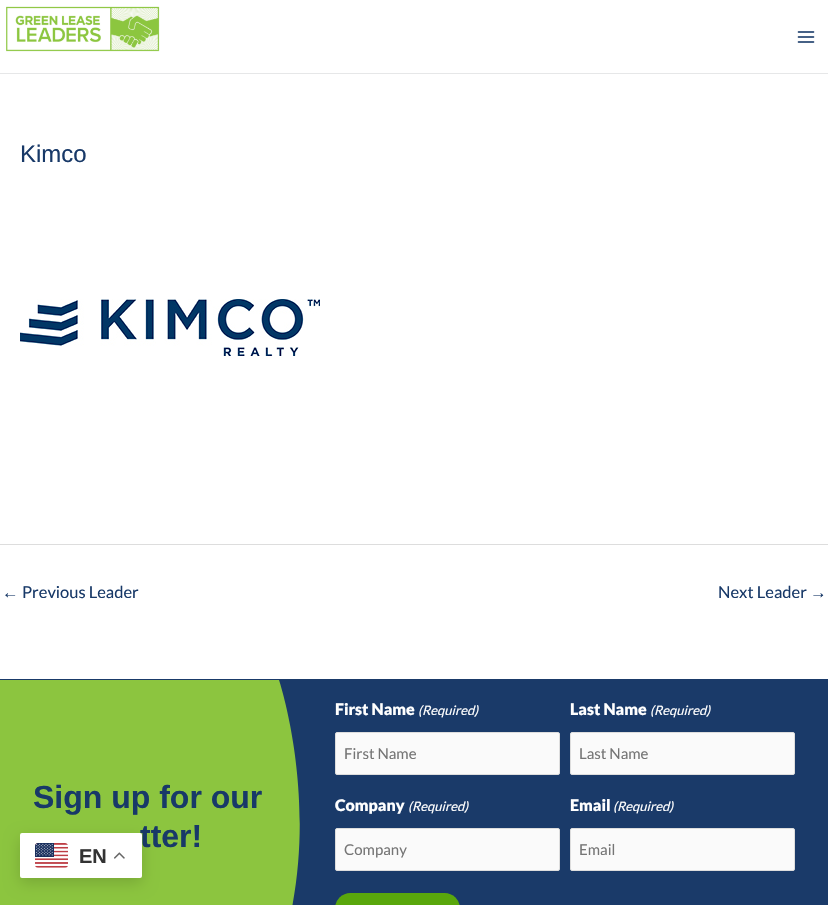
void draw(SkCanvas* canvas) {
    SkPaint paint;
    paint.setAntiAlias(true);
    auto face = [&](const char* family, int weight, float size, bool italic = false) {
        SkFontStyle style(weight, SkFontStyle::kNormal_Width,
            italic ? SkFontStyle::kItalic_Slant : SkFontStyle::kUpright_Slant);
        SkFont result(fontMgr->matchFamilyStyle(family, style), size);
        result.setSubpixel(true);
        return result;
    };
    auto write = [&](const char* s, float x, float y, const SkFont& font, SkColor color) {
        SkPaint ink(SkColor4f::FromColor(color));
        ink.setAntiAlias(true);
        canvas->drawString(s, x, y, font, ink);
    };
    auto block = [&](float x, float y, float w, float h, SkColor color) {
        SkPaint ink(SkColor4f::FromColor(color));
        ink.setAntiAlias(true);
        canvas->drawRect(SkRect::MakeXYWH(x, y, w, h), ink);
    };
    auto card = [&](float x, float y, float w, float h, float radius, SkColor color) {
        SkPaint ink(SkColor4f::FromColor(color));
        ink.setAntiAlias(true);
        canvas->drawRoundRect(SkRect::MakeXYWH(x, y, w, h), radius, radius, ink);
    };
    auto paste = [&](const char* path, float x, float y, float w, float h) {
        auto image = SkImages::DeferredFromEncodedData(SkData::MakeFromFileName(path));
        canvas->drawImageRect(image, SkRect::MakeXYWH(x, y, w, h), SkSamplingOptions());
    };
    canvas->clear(SK_ColorWHITE);
    block(0, 73, 828, 1, SkColorSetRGB(230, 231, 232));
    paste("pic1.png", 6, 6, 154, 46);
    paste("pic2.png", 797, 31, 18, 12);
    auto kFont1 = face("Liberation Sans", 400, 24);
    write("Kimco", 20, 162, kFont1, SkColorSetRGB(24, 57, 104));
    paste("pic3.png", 20, 299, 300, 60);
    block(0, 544, 828, 1, SkColorSetRGB(221, 221, 221));
    auto kFont2 = face("Liberation Sans", 400, 16.5f);
    write("←", 2, 598, kFont2, SkColorSetRGB(24, 57, 104));
    auto kFont3 = face("Lato", 400, 16.5f);
    write("Previous Leader", 22, 598, kFont3, SkColorSetRGB(24, 57, 104));
    write("Next Leader", 718, 598, kFont3, SkColorSetRGB(24, 57, 104));
    write("→", 810, 598, kFont2, SkColorSetRGB(24, 57, 104));
    block(0, 679, 828, 226, SkColorSetRGB(26, 58, 105));
    paint.setColor(SkColorSetRGB(140, 197, 63));
    canvas->drawPath(SkPathBuilder().moveTo(-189, 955).lineTo(280, 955).lineTo(280, 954).cubicTo(325, 817, 279, 680, 279, 680).lineTo(-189, 680).close().detach(), paint);
    auto kFont4 = face("Liberation Sans", 700, 32);
    write("Sign up for our", 33, 808, kFont4, SkColorSetRGB(24, 57, 104));
    write("tter!", 140, 847, kFont4, SkColorSetRGB(24, 57, 104));
    auto kFont5 = face("Lato", 900, 16);
    write("First Name", 335, 715, kFont5, SK_ColorWHITE);
    auto kFont6 = face("Lato", 400, 13, true);
    write("(Required)", 418, 715, kFont6, SK_ColorWHITE);
    paint.setColor(SkColorSetRGB(250, 250, 250));
    canvas->drawRoundRect(SkRect::MakeXYWH(335.5f, 732.5f, 224, 42), 1.5f, 1.5f, paint);
    paint.setStyle(SkPaint::kStroke_Style);
    paint.setStrokeWidth(1);
    paint.setColor(SkColorSetRGB(221, 221, 221));
    canvas->drawRoundRect(SkRect::MakeXYWH(335.5f, 732.5f, 224, 42), 1.5f, 1.5f, paint);
    auto kFont7 = face("Lato", 400, 15);
    write("First Name", 344, 759, kFont7, SkColorSetRGB(117, 117, 117));
    write("Last Name", 570, 715, kFont5, SK_ColorWHITE);
    write("(Required)", 650, 715, kFont6, SK_ColorWHITE);
    paint.setStyle(SkPaint::kFill_Style);
    paint.setColor(SkColorSetRGB(250, 250, 250));
    canvas->drawRoundRect(SkRect::MakeXYWH(570.5f, 732.5f, 224, 42), 1.5f, 1.5f, paint);
    paint.setStyle(SkPaint::kStroke_Style);
    paint.setColor(SkColorSetRGB(221, 221, 221));
    canvas->drawRoundRect(SkRect::MakeXYWH(570.5f, 732.5f, 224, 42), 1.5f, 1.5f, paint);
    write("Last Name", 579, 759, kFont7, SkColorSetRGB(117, 117, 117));
    write("Company", 335, 811, kFont5, SK_ColorWHITE);
    write("(Required)", 408, 811, kFont6, SK_ColorWHITE);
    paint.setStyle(SkPaint::kFill_Style);
    paint.setColor(SkColorSetRGB(250, 250, 250));
    canvas->drawRoundRect(SkRect::MakeXYWH(335.5f, 828.5f, 224, 42), 1.5f, 1.5f, paint);
    paint.setStyle(SkPaint::kStroke_Style);
    paint.setColor(SkColorSetRGB(221, 221, 221));
    canvas->drawRoundRect(SkRect::MakeXYWH(335.5f, 828.5f, 224, 42), 1.5f, 1.5f, paint);
    write("Company", 344, 855, kFont7, SkColorSetRGB(117, 117, 117));
    write("Email", 570, 811, kFont5, SK_ColorWHITE);
    write("(Required)", 613, 811, kFont6, SK_ColorWHITE);
    paint.setStyle(SkPaint::kFill_Style);
    paint.setColor(SkColorSetRGB(250, 250, 250));
    canvas->drawRoundRect(SkRect::MakeXYWH(570.5f, 828.5f, 224, 42), 1.5f, 1.5f, paint);
    paint.setStyle(SkPaint::kStroke_Style);
    paint.setColor(SkColorSetRGB(221, 221, 221));
    canvas->drawRoundRect(SkRect::MakeXYWH(570.5f, 828.5f, 224, 42), 1.5f, 1.5f, paint);
    write("Email", 579, 855, kFont7, SkColorSetRGB(117, 117, 117));
    card(335, 893, 125, 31, 19, SkColorSetRGB(89, 167, 12));
    paint.setStyle(SkPaint::kFill_Style);
    paint.setColor(SkColorSetARGB(38, 0, 0, 0));
    paint.setMaskFilter(SkMaskFilter::MakeBlur(kNormal_SkBlurStyle, 7.5f));
    canvas->drawRoundRect(SkRect::MakeXYWH(20, 838, 122, 45), 2, 2, paint);
    paint.setMaskFilter(nullptr);
    card(20, 833, 122, 45, 2, SK_ColorWHITE);
    paste("pic4.png", 35, 843, 33, 25);
    auto kFont8 = face("Liberation Sans", 700, 20);
    write("EN", 79, 863, kFont8, SkColorSetRGB(51, 51, 51));
    paste("pic5.png", 114, 852, 11, 7);
}
